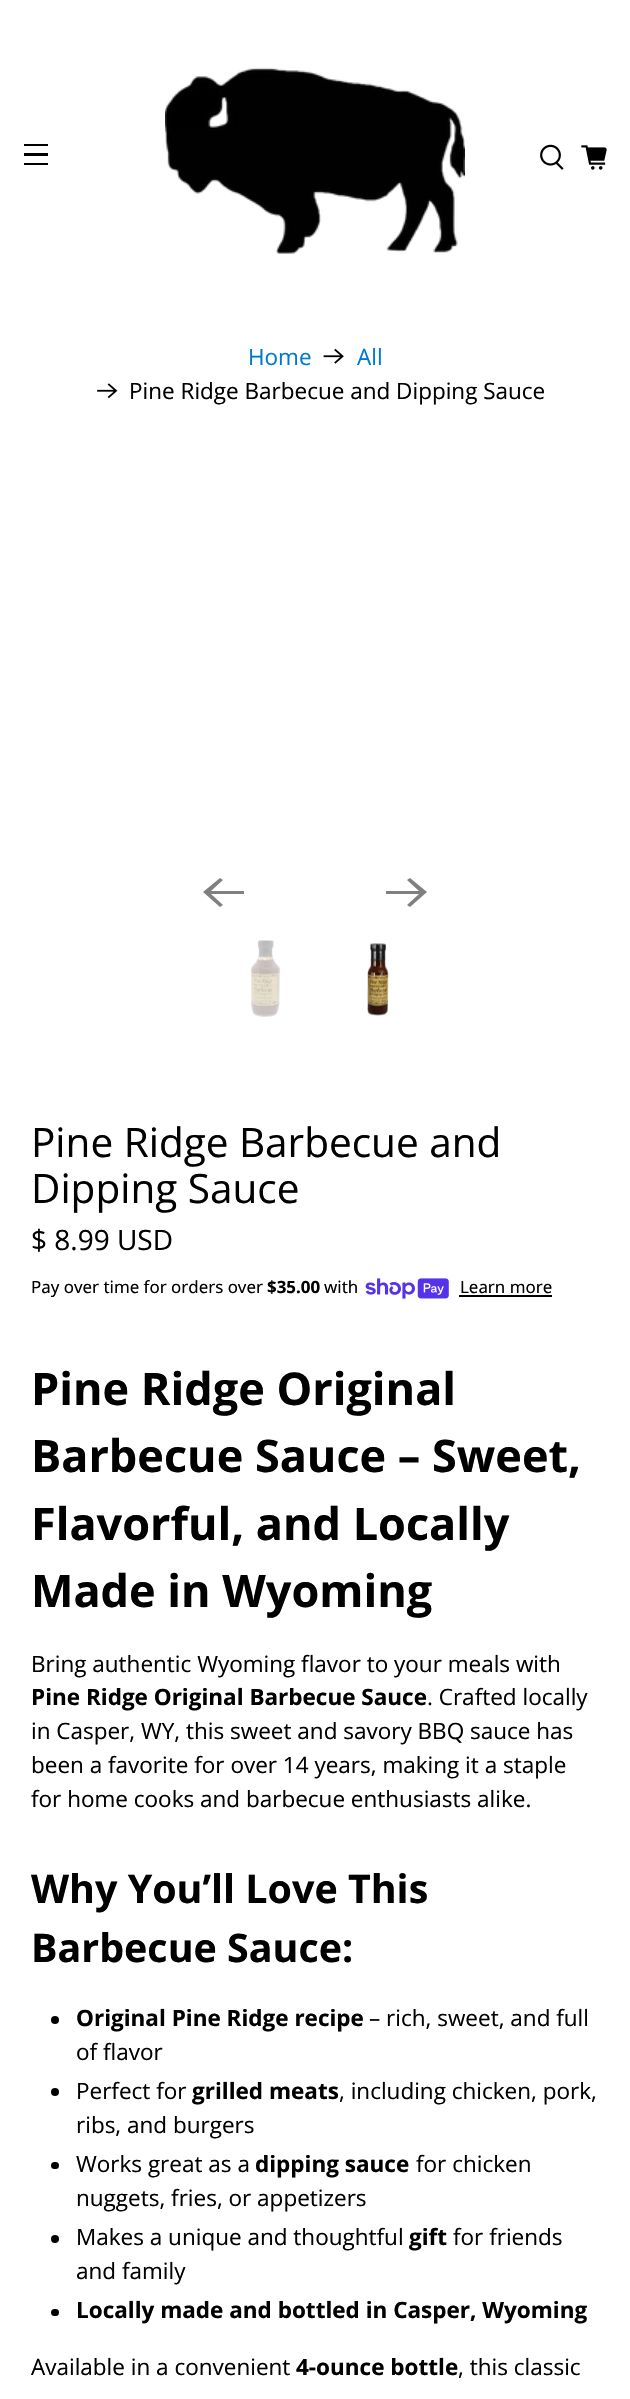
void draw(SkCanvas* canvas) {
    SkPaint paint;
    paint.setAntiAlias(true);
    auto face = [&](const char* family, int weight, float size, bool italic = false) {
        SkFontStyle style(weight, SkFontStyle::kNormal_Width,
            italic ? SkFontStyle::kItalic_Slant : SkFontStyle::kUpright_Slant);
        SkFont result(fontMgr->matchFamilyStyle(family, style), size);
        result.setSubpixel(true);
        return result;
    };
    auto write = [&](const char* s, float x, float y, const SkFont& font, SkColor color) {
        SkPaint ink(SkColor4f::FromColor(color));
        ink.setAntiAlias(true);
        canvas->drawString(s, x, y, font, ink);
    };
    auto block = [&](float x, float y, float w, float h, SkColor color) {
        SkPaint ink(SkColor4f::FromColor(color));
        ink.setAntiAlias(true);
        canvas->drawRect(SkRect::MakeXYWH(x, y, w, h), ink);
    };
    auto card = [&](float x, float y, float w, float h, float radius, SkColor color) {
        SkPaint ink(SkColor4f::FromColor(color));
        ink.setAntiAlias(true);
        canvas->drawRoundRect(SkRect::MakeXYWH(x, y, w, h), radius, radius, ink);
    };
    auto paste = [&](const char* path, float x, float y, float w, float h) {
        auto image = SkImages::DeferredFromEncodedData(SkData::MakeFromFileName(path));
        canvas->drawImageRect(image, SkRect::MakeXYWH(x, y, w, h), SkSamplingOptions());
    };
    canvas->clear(SK_ColorWHITE);
    block(24, 144, 24, 2, SK_ColorBLACK);
    block(24, 153, 24, 3, SK_ColorBLACK);
    block(24, 163, 24, 2, SK_ColorBLACK);
    paste("pic1.png", 165, 67, 300, 187);
    paste("pic2.png", 540, 144, 24, 26);
    paste("pic3.png", 581, 145, 26, 25);
    auto kFont1 = face("Open Sans", 400, 22.5f);
    write("Home", 248, 365, kFont1, SkColorSetRGB(0, 122, 206));
    paste("pic4.png", 323, 348, 21, 16);
    write("All", 357, 365, kFont1, SkColorSetRGB(0, 122, 206));
    paste("pic5.png", 97, 383, 21, 16);
    write("Pine Ridge Barbecue and Dipping Sauce", 129, 399, kFont1, SK_ColorBLACK);
    paint.setColor(SkColorSetRGB(128, 128, 128));
    canvas->drawPath(SkPathBuilder().moveTo(244, 891).lineTo(211, 891).lineTo(223, 880).lineTo(220, 878).lineTo(203, 892).lineTo(220, 907).lineTo(223, 905).lineTo(211, 894).lineTo(244, 894).close().detach(), paint);
    canvas->drawPath(SkPathBuilder().moveTo(386, 894).lineTo(419, 894).lineTo(407, 905).lineTo(410, 907).lineTo(427, 892).lineTo(410, 878).lineTo(407, 880).lineTo(419, 891).lineTo(386, 891).close().detach(), paint);
    paste("pic6.png", 250, 940, 30, 77);
    paste("pic7.png", 367, 943, 22, 73);
    auto kFont2 = face("Open Sans", 400, 40.5f);
    write("Pine Ridge Barbecue and", 31, 1157, kFont2, SK_ColorBLACK);
    write("Dipping Sauce", 31, 1203, kFont2, SK_ColorBLACK);
    auto kFont3 = face("Open Sans", 400, 28);
    write("$ 8.99 USD", 31, 1250, kFont3, SK_ColorBLACK);
    auto kFont4 = face("Noto Sans", 400, 16.9f);
    write("Pay over time for orders over", 31, 1293, kFont4, SK_ColorBLACK);
    auto kFont5 = face("Noto Sans", 700, 16.9f);
    write("$35.00", 267, 1293, kFont5, SK_ColorBLACK);
    write("with", 324, 1293, kFont4, SK_ColorBLACK);
    paste("pic8.png", 365, 1278, 84, 21);
    write("Learn more", 460, 1293, kFont4, SK_ColorBLACK);
    block(459, 1295, 93, 2, SK_ColorBLACK);
    auto kFont6 = face("Open Sans", 700, 45);
    write("Pine Ridge Original", 31, 1405, kFont6, SK_ColorBLACK);
    write("Barbecue Sauce – Sweet,", 31, 1472, kFont6, SK_ColorBLACK);
    write("Flavorful, and Locally", 31, 1540, kFont6, SK_ColorBLACK);
    write("Made in Wyoming", 31, 1607, kFont6, SK_ColorBLACK);
    write("Bring authentic Wyoming flavor to your meals with", 31, 1672, kFont1, SK_ColorBLACK);
    auto kFont7 = face("Open Sans", 700, 22.5f);
    write("Pine Ridge Original Barbecue Sauce", 31, 1705, kFont7, SK_ColorBLACK);
    write(". Crafted locally", 427, 1705, kFont1, SK_ColorBLACK);
    write("in Casper, WY, this sweet and savory BBQ sauce has", 31, 1739, kFont1, SK_ColorBLACK);
    write("been a favorite for over 14 years, making it a staple", 31, 1773, kFont1, SK_ColorBLACK);
    write("for home cooks and barbecue enthusiasts alike.", 31, 1807, kFont1, SK_ColorBLACK);
    auto kFont8 = face("Open Sans", 700, 39.4f);
    write("Why You’ll Love This", 31, 1903, kFont8, SK_ColorBLACK);
    write("Barbecue Sauce:", 31, 1962, kFont8, SK_ColorBLACK);
    paint.setColor(SK_ColorBLACK);
    canvas->drawCircle(55, 2020, 4, paint);
    write("Original Pine Ridge recipe", 76, 2026, kFont7, SK_ColorBLACK);
    write("– rich, sweet, and full", 369, 2026, kFont1, SK_ColorBLACK);
    write("of flavor", 76, 2060, kFont1, SK_ColorBLACK);
    canvas->drawCircle(55, 2092, 4, paint);
    write("Perfect for", 76, 2099, kFont1, SK_ColorBLACK);
    write("grilled meats", 192, 2099, kFont7, SK_ColorBLACK);
    write(", including chicken, pork,", 339, 2099, kFont1, SK_ColorBLACK);
    write("ribs, and burgers", 76, 2133, kFont1, SK_ColorBLACK);
    card(51, 2162, 8, 7, 3.5f, SK_ColorBLACK);
    write("Works great as a", 76, 2172, kFont1, SK_ColorBLACK);
    write("dipping sauce", 255, 2172, kFont7, SK_ColorBLACK);
    write("for chicken", 416, 2172, kFont1, SK_ColorBLACK);
    write("nuggets, fries, or appetizers", 76, 2206, kFont1, SK_ColorBLACK);
    canvas->drawCircle(55, 2239, 4, paint);
    write("Makes a unique and thoughtful", 76, 2245, kFont1, SK_ColorBLACK);
    write("gift", 409, 2245, kFont7, SK_ColorBLACK);
    write("for friends", 453, 2245, kFont1, SK_ColorBLACK);
    write("and family", 76, 2279, kFont1, SK_ColorBLACK);
    card(51, 2309, 8, 7, 3.5f, SK_ColorBLACK);
    write("Locally made and bottled in Casper, Wyoming", 76, 2318, kFont7, SK_ColorBLACK);
    write("Available in a convenient", 31, 2375, kFont1, SK_ColorBLACK);
    write("4-ounce bottle", 296, 2375, kFont7, SK_ColorBLACK);
    write(", this classic", 458, 2375, kFont1, SK_ColorBLACK);
}
